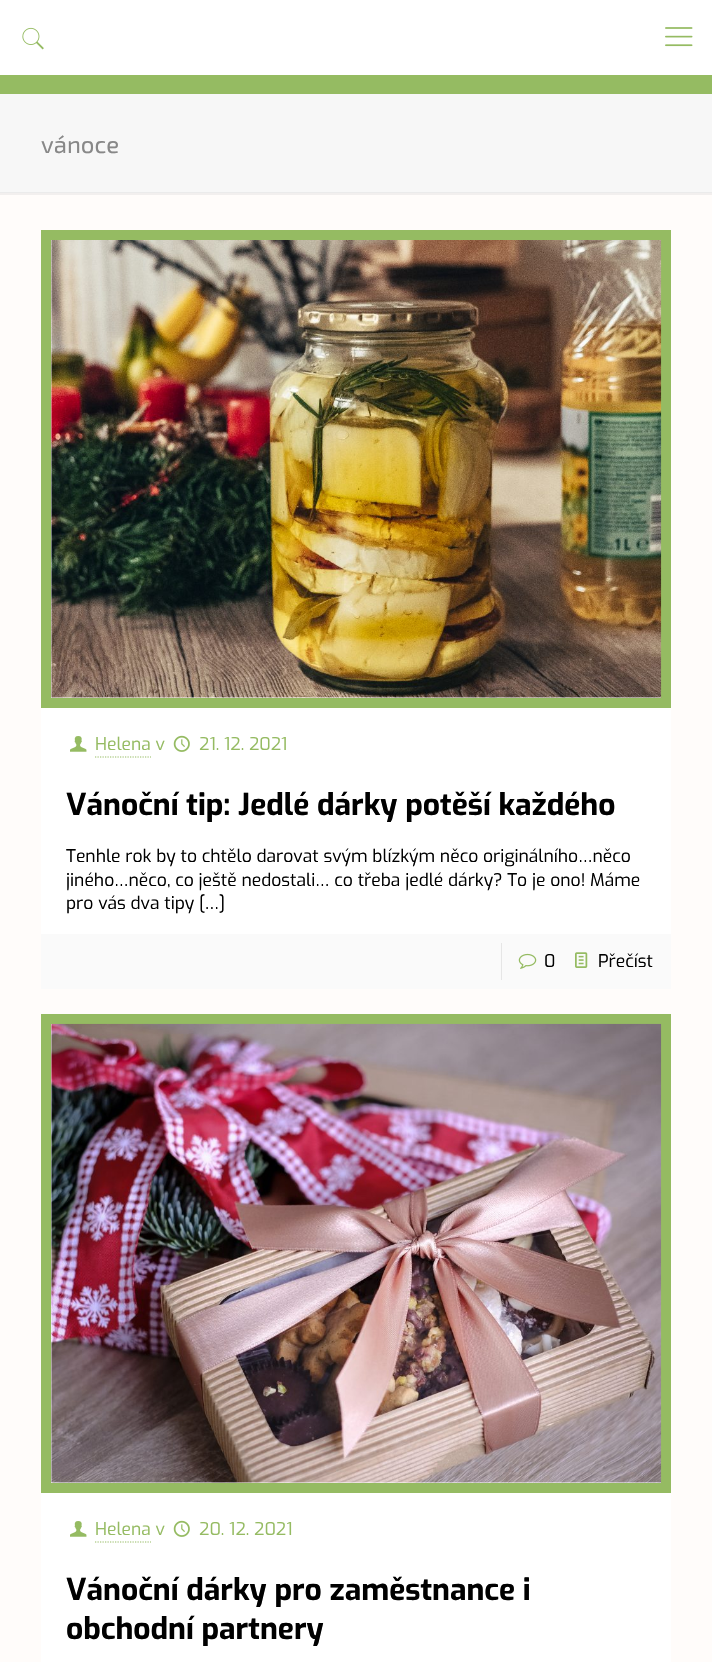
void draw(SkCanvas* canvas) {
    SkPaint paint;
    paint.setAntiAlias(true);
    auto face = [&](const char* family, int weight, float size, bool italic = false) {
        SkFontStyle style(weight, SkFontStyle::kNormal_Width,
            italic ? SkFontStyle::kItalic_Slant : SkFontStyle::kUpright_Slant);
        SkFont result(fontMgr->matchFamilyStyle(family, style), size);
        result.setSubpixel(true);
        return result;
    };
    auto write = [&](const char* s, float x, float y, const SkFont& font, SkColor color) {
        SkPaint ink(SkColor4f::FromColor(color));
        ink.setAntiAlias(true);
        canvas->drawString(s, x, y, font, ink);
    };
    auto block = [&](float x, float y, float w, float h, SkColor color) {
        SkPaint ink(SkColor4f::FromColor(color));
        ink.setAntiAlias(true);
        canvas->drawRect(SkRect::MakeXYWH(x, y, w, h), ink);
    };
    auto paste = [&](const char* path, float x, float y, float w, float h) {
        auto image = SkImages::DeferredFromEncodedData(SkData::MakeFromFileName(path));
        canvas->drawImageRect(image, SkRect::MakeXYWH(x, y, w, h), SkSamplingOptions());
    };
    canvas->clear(SkColorSetRGB(255, 252, 250));
    block(0, 193, 712, 2, SkColorSetRGB(242, 239, 238));
    block(0, 75, 712, 19, SkColorSetRGB(149, 187, 98));
    block(0, 0, 712, 75, SK_ColorWHITE);
    paste("pic1.png", 22, 27, 22, 23);
    paste("pic2.png", 665, 27, 28, 20);
    block(0, 94, 712, 98, SkColorSetRGB(247, 247, 247));
    block(0, 192, 712, 1, SkColorSetRGB(235, 235, 235));
    auto kFont1 = face("Exo 2", 400, 24);
    write("vánoce", 41, 153, kFont1, SkColorSetRGB(136, 136, 136));
    block(41, 240, 630, 694, SK_ColorWHITE);
    paint.setStyle(SkPaint::kStroke_Style);
    paint.setStrokeWidth(10);
    paint.setColor(SkColorSetRGB(149, 187, 98));
    canvas->drawRect(SkRect::MakeXYWH(46, 235, 620, 468), paint);
    paste("pic3.png", 51, 240, 611, 458);
    paste("pic4.png", 70, 736, 17, 16);
    auto kFont2 = face("Exo", 400, 17.5f);
    write("Helena v", 95, 750, kFont2, SkColorSetRGB(149, 187, 98));
    paint.setStrokeWidth(1.2f);
    paint.setPathEffect(SkDashPathEffect::Make({{1.25f, 1.25f}}, 0));
    canvas->drawPath(SkPathBuilder().moveTo(95, 757).lineTo(151, 757).detach(), paint);
    paint.setPathEffect(nullptr);
    paste("pic5.png", 173, 735, 17, 17);
    write("21. 12. 2021", 199, 750, kFont2, SkColorSetRGB(149, 187, 98));
    auto kFont3 = face("Exo", 700, 30);
    write("Vánoční tip: Jedlé dárky potěší každého", 66, 815, kFont3, SK_ColorBLACK);
    write("Tenhle rok by to chtělo darovat svým blízkým něco originálního…něco", 66, 862, kFont2, SK_ColorBLACK);
    write("jiného…něco, co ještě nedostali… co třeba jedlé dárky? To je ono! Máme", 66, 886, kFont2, SK_ColorBLACK);
    write("pro vás dva tipy […]", 66, 909, kFont2, SK_ColorBLACK);
    block(41, 934, 630, 55, SkColorSetRGB(250, 250, 250));
    block(501, 943, 1, 37, SkColorSetRGB(230, 230, 230));
    paste("pic6.png", 518, 953, 19, 16);
    write("0", 544, 967, kFont2, SK_ColorBLACK);
    paste("pic7.png", 575, 952, 13, 16);
    write("Přečíst", 598, 967, kFont2, SK_ColorBLACK);
    block(41, 1024, 630, 638, SK_ColorWHITE);
    paint.setStrokeWidth(10);
    canvas->drawRect(SkRect::MakeXYWH(46, 1019, 620, 469), paint);
    paste("pic8.png", 51, 1023, 611, 460);
    paste("pic4.png", 70, 1521, 17, 16);
    write("Helena v", 95, 1535, kFont2, SkColorSetRGB(149, 187, 98));
    paint.setStrokeWidth(1.2f);
    paint.setPathEffect(SkDashPathEffect::Make({{1.25f, 1.25f}}, 0));
    canvas->drawPath(SkPathBuilder().moveTo(95, 1542).lineTo(151, 1542).detach(), paint);
    paint.setPathEffect(nullptr);
    paste("pic5.png", 173, 1520, 17, 17);
    write("20. 12. 2021", 199, 1535, kFont2, SkColorSetRGB(149, 187, 98));
    write("Vánoční dárky pro zaměstnance i", 66, 1600, kFont3, SK_ColorBLACK);
    write("obchodní partnery", 66, 1639, kFont3, SK_ColorBLACK);
}
